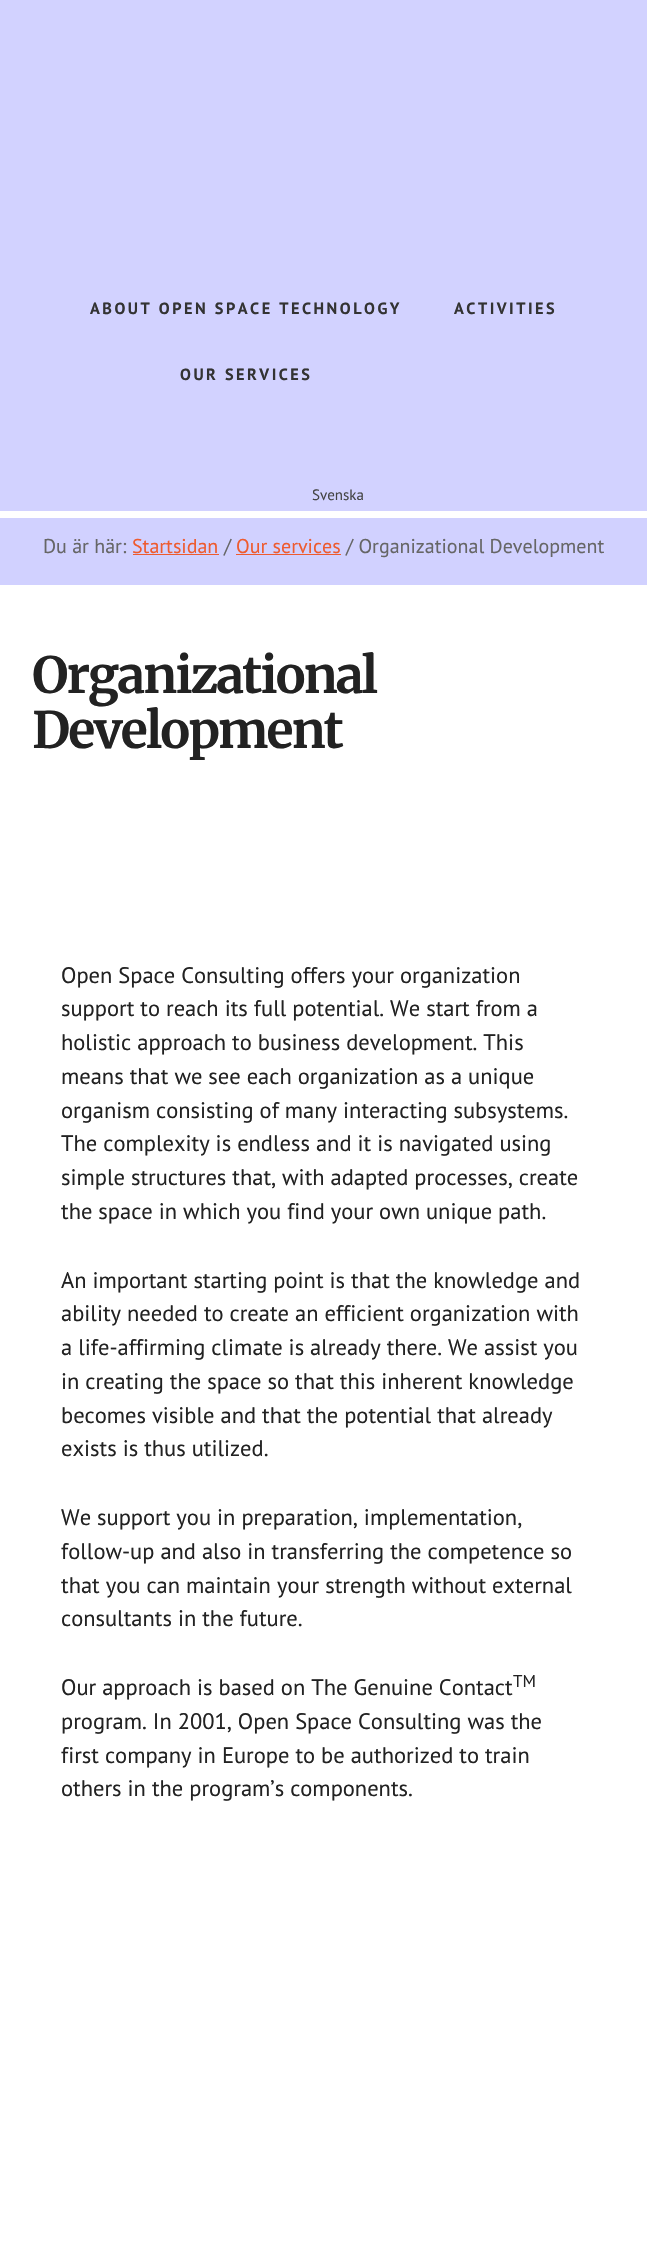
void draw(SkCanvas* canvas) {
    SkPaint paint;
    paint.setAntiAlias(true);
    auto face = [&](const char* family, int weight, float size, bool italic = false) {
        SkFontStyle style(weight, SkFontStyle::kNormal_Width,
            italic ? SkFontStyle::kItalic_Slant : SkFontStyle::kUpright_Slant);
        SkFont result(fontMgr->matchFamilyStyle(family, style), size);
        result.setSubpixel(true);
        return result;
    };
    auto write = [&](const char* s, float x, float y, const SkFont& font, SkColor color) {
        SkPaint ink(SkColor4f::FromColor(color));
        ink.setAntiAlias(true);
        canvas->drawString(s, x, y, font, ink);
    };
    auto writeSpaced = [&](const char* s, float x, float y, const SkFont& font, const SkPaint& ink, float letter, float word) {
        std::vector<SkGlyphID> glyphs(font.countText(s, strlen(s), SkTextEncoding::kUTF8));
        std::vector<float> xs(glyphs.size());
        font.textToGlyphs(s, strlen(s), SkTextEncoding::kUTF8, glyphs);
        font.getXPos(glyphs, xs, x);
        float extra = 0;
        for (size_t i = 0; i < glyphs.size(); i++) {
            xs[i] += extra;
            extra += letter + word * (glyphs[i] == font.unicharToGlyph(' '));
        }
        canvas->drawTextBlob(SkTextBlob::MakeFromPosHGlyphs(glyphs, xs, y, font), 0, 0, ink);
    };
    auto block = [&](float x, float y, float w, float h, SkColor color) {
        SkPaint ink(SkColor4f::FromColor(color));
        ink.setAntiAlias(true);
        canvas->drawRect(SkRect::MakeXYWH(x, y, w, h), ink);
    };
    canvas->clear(SK_ColorWHITE);
    block(0, 0, 647, 511, SkColorSetRGB(210, 210, 255));
    auto kFont1 = face("PT Sans", 700, 16.25f);
    paint.setColor(SkColorSetRGB(51, 51, 51));
    writeSpaced("ABOUT OPEN SPACE TECHNOLOGY", 90, 314, kFont1, paint, 2.5f, 0);
    writeSpaced("ACTIVITIES", 454, 314, kFont1, paint, 2.5f, 0);
    writeSpaced("OUR SERVICES", 180, 380, kFont1, paint, 2.5f, 0);
    auto kFont2 = face("PT Sans", 400, 15);
    write("Svenska", 312, 500, kFont2, SkColorSetRGB(68, 68, 68));
    block(0, 518, 647, 67, SkColorSetRGB(209, 209, 255));
    auto kFont3 = face("PT Sans", 400, 20);
    write("Du är här:", 43, 553, kFont3, SkColorSetRGB(102, 102, 102));
    write("Startsidan", 132, 553, kFont3, SkColorSetRGB(238, 91, 47));
    block(133, 554, 86, 1, SkColorSetRGB(238, 91, 47));
    write("/", 224, 553, kFont3, SkColorSetRGB(102, 102, 102));
    write("Our services", 236, 553, kFont3, SkColorSetRGB(238, 91, 47));
    block(236, 554, 105, 1, SkColorSetRGB(238, 91, 47));
    write("/ Organizational Development", 346, 553, kFont3, SkColorSetRGB(102, 102, 102));
    auto kFont4 = face("Merriweather", 700, 50);
    paint.setColor(SkColorSetRGB(34, 34, 34));
    writeSpaced("Organizational", 32, 693, kFont4, paint, -1.9f, 0);
    writeSpaced("Development", 32, 748, kFont4, paint, -1.9f, 0);
    auto kFont5 = face("PT Sans", 400, 22.5f);
    write("Open Space Consulting offers your organization", 61, 983, kFont5, SkColorSetRGB(34, 34, 34));
    write("support to reach its full potential. We start from a", 61, 1016, kFont5, SkColorSetRGB(34, 34, 34));
    write("holistic approach to business development. This", 61, 1050, kFont5, SkColorSetRGB(34, 34, 34));
    write("means that we see each organization as a unique", 61, 1084, kFont5, SkColorSetRGB(34, 34, 34));
    write("organism consisting of many interacting subsystems.", 61, 1118, kFont5, SkColorSetRGB(34, 34, 34));
    write("The complexity is endless and it is navigated using", 61, 1151, kFont5, SkColorSetRGB(34, 34, 34));
    write("simple structures that, with adapted processes, create", 61, 1185, kFont5, SkColorSetRGB(34, 34, 34));
    write("the space in which you find your own unique path.", 61, 1219, kFont5, SkColorSetRGB(34, 34, 34));
    write("An important starting point is that the knowledge and", 61, 1288, kFont5, SkColorSetRGB(34, 34, 34));
    write("ability needed to create an efficient organization with", 61, 1321, kFont5, SkColorSetRGB(34, 34, 34));
    write("a life-affirming climate is already there. We assist you", 61, 1355, kFont5, SkColorSetRGB(34, 34, 34));
    write("in creating the space so that this inherent knowledge", 61, 1389, kFont5, SkColorSetRGB(34, 34, 34));
    write("becomes visible and that the potential that already", 61, 1423, kFont5, SkColorSetRGB(34, 34, 34));
    write("exists is thus utilized.", 61, 1456, kFont5, SkColorSetRGB(34, 34, 34));
    write("We support you in preparation, implementation,", 61, 1525, kFont5, SkColorSetRGB(34, 34, 34));
    write("follow-up and also in transferring the competence so", 61, 1559, kFont5, SkColorSetRGB(34, 34, 34));
    write("that you can maintain your strength without external", 61, 1593, kFont5, SkColorSetRGB(34, 34, 34));
    write("consultants in the future.", 61, 1626, kFont5, SkColorSetRGB(34, 34, 34));
    write("Our approach is based on The Genuine Contact", 61, 1695, kFont5, SkColorSetRGB(34, 34, 34));
    auto kFont6 = face("PT Sans", 400, 17);
    write("TM", 513, 1687, kFont6, SkColorSetRGB(34, 34, 34));
    write("program. In 2001, Open Space Consulting was the", 61, 1729, kFont5, SkColorSetRGB(34, 34, 34));
    write("first company in Europe to be authorized to train", 61, 1763, kFont5, SkColorSetRGB(34, 34, 34));
    write("others in the program’s components.", 61, 1796, kFont5, SkColorSetRGB(34, 34, 34));
}
